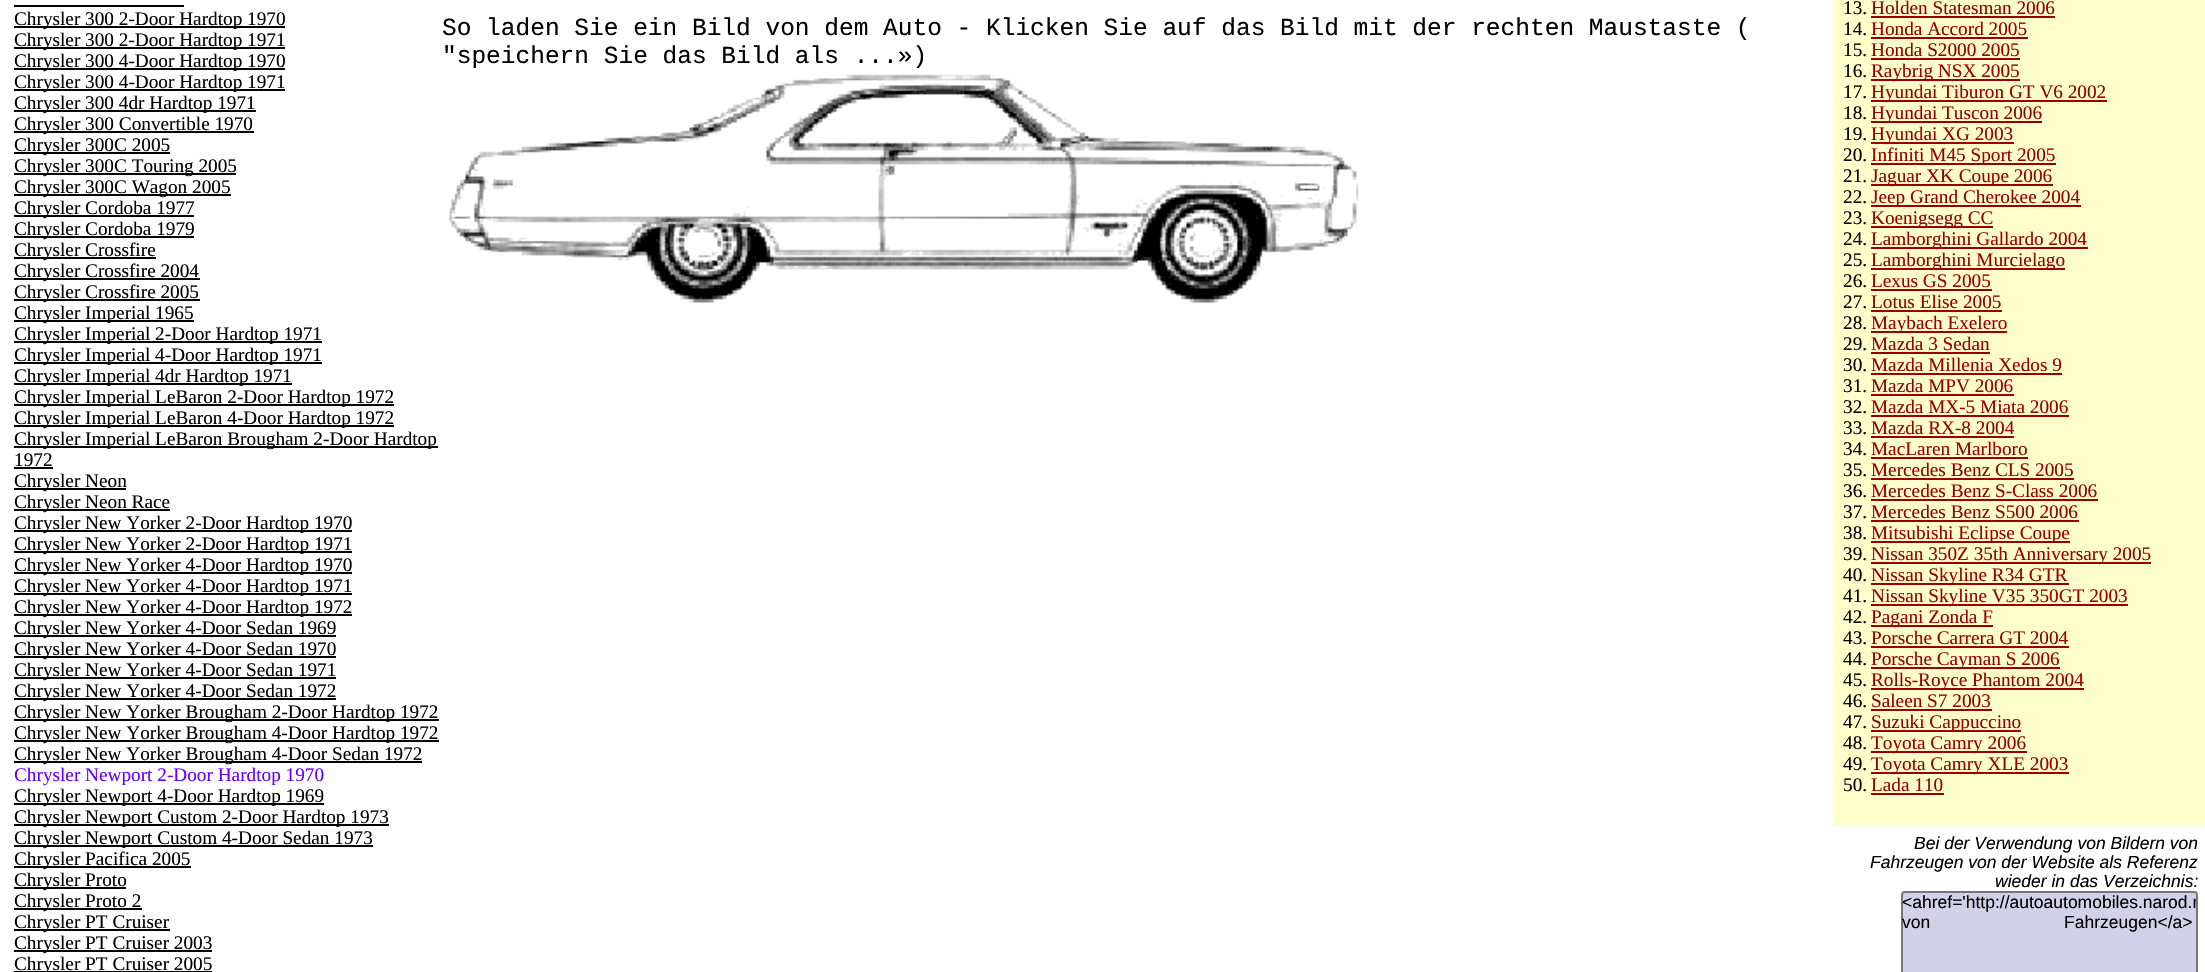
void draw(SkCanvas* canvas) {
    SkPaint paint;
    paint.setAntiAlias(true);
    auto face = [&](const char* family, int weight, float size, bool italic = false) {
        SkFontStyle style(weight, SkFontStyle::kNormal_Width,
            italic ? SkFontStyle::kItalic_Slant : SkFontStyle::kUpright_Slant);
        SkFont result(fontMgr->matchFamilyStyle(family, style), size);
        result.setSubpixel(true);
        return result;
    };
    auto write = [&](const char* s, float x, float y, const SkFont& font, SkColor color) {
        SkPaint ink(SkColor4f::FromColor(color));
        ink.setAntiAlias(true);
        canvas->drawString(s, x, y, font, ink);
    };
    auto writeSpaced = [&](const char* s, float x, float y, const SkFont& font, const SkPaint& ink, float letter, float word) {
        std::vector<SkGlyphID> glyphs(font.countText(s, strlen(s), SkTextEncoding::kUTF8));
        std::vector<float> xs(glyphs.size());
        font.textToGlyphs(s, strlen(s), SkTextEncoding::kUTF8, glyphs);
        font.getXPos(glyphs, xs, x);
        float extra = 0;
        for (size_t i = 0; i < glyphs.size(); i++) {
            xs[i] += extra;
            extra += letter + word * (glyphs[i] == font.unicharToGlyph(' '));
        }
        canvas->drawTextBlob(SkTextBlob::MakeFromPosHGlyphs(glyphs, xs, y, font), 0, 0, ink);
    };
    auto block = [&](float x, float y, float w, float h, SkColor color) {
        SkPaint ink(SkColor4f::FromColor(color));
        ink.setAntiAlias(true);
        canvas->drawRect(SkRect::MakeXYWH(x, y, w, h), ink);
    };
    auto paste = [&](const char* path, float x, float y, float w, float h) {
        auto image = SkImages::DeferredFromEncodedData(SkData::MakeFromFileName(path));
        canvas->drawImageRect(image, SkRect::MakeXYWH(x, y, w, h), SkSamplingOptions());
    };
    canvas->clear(SK_ColorWHITE);
    block(14, 5, 170, 2, SK_ColorBLACK);
    block(14, 26, 271, 2, SK_ColorBLACK);
    auto kFont1 = face("Liberation Serif", 400, 19.25f);
    write("Chrysler 300 2-Door Hardtop 1970", 14, 25, kFont1, SK_ColorBLACK);
    block(14, 47, 271, 2, SK_ColorBLACK);
    write("Chrysler 300 2-Door Hardtop 1971", 14, 46, kFont1, SK_ColorBLACK);
    block(14, 68, 271, 2, SK_ColorBLACK);
    write("Chrysler 300 4-Door Hardtop 1970", 14, 67, kFont1, SK_ColorBLACK);
    block(14, 89, 271, 2, SK_ColorBLACK);
    write("Chrysler 300 4-Door Hardtop 1971", 14, 88, kFont1, SK_ColorBLACK);
    block(14, 110, 242, 2, SK_ColorBLACK);
    write("Chrysler 300 4dr Hardtop 1971", 14, 109, kFont1, SK_ColorBLACK);
    block(14, 131, 240, 2, SK_ColorBLACK);
    write("Chrysler 300 Convertible 1970", 14, 130, kFont1, SK_ColorBLACK);
    block(14, 152, 156, 2, SK_ColorBLACK);
    write("Chrysler 300C 2005", 14, 151, kFont1, SK_ColorBLACK);
    block(14, 173, 222, 2, SK_ColorBLACK);
    write("Chrysler 300C Touring 2005", 14, 172, kFont1, SK_ColorBLACK);
    block(14, 194, 217, 2, SK_ColorBLACK);
    write("Chrysler 300C Wagon 2005", 14, 193, kFont1, SK_ColorBLACK);
    block(14, 215, 180, 2, SK_ColorBLACK);
    write("Chrysler Cordoba 1977", 14, 214, kFont1, SK_ColorBLACK);
    block(14, 236, 180, 2, SK_ColorBLACK);
    write("Chrysler Cordoba 1979", 14, 235, kFont1, SK_ColorBLACK);
    block(14, 257, 142, 2, SK_ColorBLACK);
    write("Chrysler Crossfire", 14, 256, kFont1, SK_ColorBLACK);
    block(14, 278, 186, 2, SK_ColorBLACK);
    write("Chrysler Crossfire 2004", 14, 277, kFont1, SK_ColorBLACK);
    block(14, 299, 186, 2, SK_ColorBLACK);
    write("Chrysler Crossfire 2005", 14, 298, kFont1, SK_ColorBLACK);
    block(14, 320, 180, 2, SK_ColorBLACK);
    write("Chrysler Imperial 1965", 14, 319, kFont1, SK_ColorBLACK);
    block(14, 341, 308, 2, SK_ColorBLACK);
    write("Chrysler Imperial 2-Door Hardtop 1971", 14, 340, kFont1, SK_ColorBLACK);
    block(14, 362, 308, 2, SK_ColorBLACK);
    write("Chrysler Imperial 4-Door Hardtop 1971", 14, 361, kFont1, SK_ColorBLACK);
    block(14, 383, 278, 2, SK_ColorBLACK);
    write("Chrysler Imperial 4dr Hardtop 1971", 14, 382, kFont1, SK_ColorBLACK);
    block(14, 404, 380, 2, SK_ColorBLACK);
    write("Chrysler Imperial LeBaron 2-Door Hardtop 1972", 14, 403, kFont1, SK_ColorBLACK);
    block(14, 425, 380, 2, SK_ColorBLACK);
    write("Chrysler Imperial LeBaron 4-Door Hardtop 1972", 14, 424, kFont1, SK_ColorBLACK);
    block(14, 446, 424, 2, SK_ColorBLACK);
    write("Chrysler Imperial LeBaron Brougham 2-Door Hardtop", 14, 445, kFont1, SK_ColorBLACK);
    write("1972", 14, 466, kFont1, SK_ColorBLACK);
    block(14, 467, 39, 2, SK_ColorBLACK);
    block(14, 488, 112, 2, SK_ColorBLACK);
    write("Chrysler Neon", 14, 487, kFont1, SK_ColorBLACK);
    block(14, 509, 156, 2, SK_ColorBLACK);
    write("Chrysler Neon Race", 14, 508, kFont1, SK_ColorBLACK);
    block(14, 530, 338, 2, SK_ColorBLACK);
    write("Chrysler New Yorker 2-Door Hardtop 1970", 14, 529, kFont1, SK_ColorBLACK);
    block(14, 551, 338, 2, SK_ColorBLACK);
    write("Chrysler New Yorker 2-Door Hardtop 1971", 14, 550, kFont1, SK_ColorBLACK);
    block(14, 572, 338, 2, SK_ColorBLACK);
    write("Chrysler New Yorker 4-Door Hardtop 1970", 14, 571, kFont1, SK_ColorBLACK);
    block(14, 593, 338, 2, SK_ColorBLACK);
    write("Chrysler New Yorker 4-Door Hardtop 1971", 14, 592, kFont1, SK_ColorBLACK);
    block(14, 614, 338, 2, SK_ColorBLACK);
    write("Chrysler New Yorker 4-Door Hardtop 1972", 14, 613, kFont1, SK_ColorBLACK);
    block(14, 635, 322, 2, SK_ColorBLACK);
    write("Chrysler New Yorker 4-Door Sedan 1969", 14, 634, kFont1, SK_ColorBLACK);
    block(14, 656, 322, 2, SK_ColorBLACK);
    write("Chrysler New Yorker 4-Door Sedan 1970", 14, 655, kFont1, SK_ColorBLACK);
    block(14, 677, 322, 2, SK_ColorBLACK);
    write("Chrysler New Yorker 4-Door Sedan 1971", 14, 676, kFont1, SK_ColorBLACK);
    block(14, 698, 322, 2, SK_ColorBLACK);
    write("Chrysler New Yorker 4-Door Sedan 1972", 14, 697, kFont1, SK_ColorBLACK);
    block(14, 719, 425, 2, SK_ColorBLACK);
    write("Chrysler New Yorker Brougham 2-Door Hardtop 1972", 14, 718, kFont1, SK_ColorBLACK);
    block(14, 740, 425, 2, SK_ColorBLACK);
    write("Chrysler New Yorker Brougham 4-Door Hardtop 1972", 14, 739, kFont1, SK_ColorBLACK);
    block(14, 761, 408, 2, SK_ColorBLACK);
    write("Chrysler New Yorker Brougham 4-Door Sedan 1972", 14, 760, kFont1, SK_ColorBLACK);
    write("Chrysler Newport 2-Door Hardtop 1970", 14, 781, kFont1, SkColorSetRGB(102, 0, 255));
    block(14, 803, 310, 2, SK_ColorBLACK);
    write("Chrysler Newport 4-Door Hardtop 1969", 14, 802, kFont1, SK_ColorBLACK);
    block(14, 824, 375, 2, SK_ColorBLACK);
    write("Chrysler Newport Custom 2-Door Hardtop 1973", 14, 823, kFont1, SK_ColorBLACK);
    block(14, 845, 359, 2, SK_ColorBLACK);
    write("Chrysler Newport Custom 4-Door Sedan 1973", 14, 844, kFont1, SK_ColorBLACK);
    block(14, 866, 177, 2, SK_ColorBLACK);
    write("Chrysler Pacifica 2005", 14, 865, kFont1, SK_ColorBLACK);
    block(14, 887, 112, 2, SK_ColorBLACK);
    write("Chrysler Proto", 14, 886, kFont1, SK_ColorBLACK);
    block(14, 908, 128, 2, SK_ColorBLACK);
    write("Chrysler Proto 2", 14, 907, kFont1, SK_ColorBLACK);
    block(14, 929, 156, 2, SK_ColorBLACK);
    write("Chrysler PT Cruiser", 14, 928, kFont1, SK_ColorBLACK);
    block(14, 950, 198, 2, SK_ColorBLACK);
    write("Chrysler PT Cruiser 2003", 14, 949, kFont1, SK_ColorBLACK);
    block(14, 971, 198, 1, SK_ColorBLACK);
    write("Chrysler PT Cruiser 2005", 14, 970, kFont1, SK_ColorBLACK);
    auto kFont2 = face("Liberation Mono", 400, 24.5f);
    write("So laden Sie ein Bild von dem Auto - Klicken Sie auf das Bild mit der rechten Maustaste (", 442, 35, kFont2, SK_ColorBLACK);
    write("\"speichern Sie das Bild als ...»)", 442, 63, kFont2, SK_ColorBLACK);
    paste("pic1.png", 449, 74, 910, 229);
    block(1834, 0, 371, 826, SkColorSetRGB(255, 255, 204));
    write("13.", 1843, 14, kFont1, SK_ColorBLACK);
    write("Holden Statesman 2006", 1871, 14, kFont1, SkColorSetRGB(153, 0, 0));
    block(1871, 16, 184, 2, SkColorSetRGB(153, 0, 0));
    write("14.", 1843, 35, kFont1, SK_ColorBLACK);
    write("Honda Accord 2005", 1871, 35, kFont1, SkColorSetRGB(153, 0, 0));
    block(1871, 37, 157, 2, SkColorSetRGB(153, 0, 0));
    write("15.", 1843, 56, kFont1, SK_ColorBLACK);
    write("Honda S2000 2005", 1871, 56, kFont1, SkColorSetRGB(153, 0, 0));
    block(1871, 58, 149, 2, SkColorSetRGB(153, 0, 0));
    write("16.", 1843, 77, kFont1, SK_ColorBLACK);
    block(1871, 79, 149, 2, SkColorSetRGB(153, 0, 0));
    write("Raybrig NSX 2005", 1871, 77, kFont1, SkColorSetRGB(153, 0, 0));
    write("17.", 1843, 98, kFont1, SK_ColorBLACK);
    block(1871, 100, 236, 2, SkColorSetRGB(153, 0, 0));
    write("Hyundai Tiburon GT V6 2002", 1871, 98, kFont1, SkColorSetRGB(153, 0, 0));
    write("18.", 1843, 119, kFont1, SK_ColorBLACK);
    block(1871, 121, 171, 2, SkColorSetRGB(153, 0, 0));
    write("Hyundai Tuscon 2006", 1871, 119, kFont1, SkColorSetRGB(153, 0, 0));
    write("19.", 1843, 140, kFont1, SK_ColorBLACK);
    block(1871, 142, 143, 2, SkColorSetRGB(153, 0, 0));
    write("Hyundai XG 2003", 1871, 140, kFont1, SkColorSetRGB(153, 0, 0));
    write("20.", 1843, 161, kFont1, SK_ColorBLACK);
    block(1871, 163, 185, 2, SkColorSetRGB(153, 0, 0));
    write("Infiniti M45 Sport 2005", 1871, 161, kFont1, SkColorSetRGB(153, 0, 0));
    write("21.", 1843, 182, kFont1, SK_ColorBLACK);
    block(1871, 184, 182, 2, SkColorSetRGB(153, 0, 0));
    write("Jaguar XK Coupe 2006", 1871, 182, kFont1, SkColorSetRGB(153, 0, 0));
    write("22.", 1843, 203, kFont1, SK_ColorBLACK);
    block(1871, 205, 210, 2, SkColorSetRGB(153, 0, 0));
    write("Jeep Grand Cherokee 2004", 1871, 203, kFont1, SkColorSetRGB(153, 0, 0));
    write("23.", 1843, 224, kFont1, SK_ColorBLACK);
    block(1871, 226, 122, 2, SkColorSetRGB(153, 0, 0));
    write("Koenigsegg CC", 1871, 224, kFont1, SkColorSetRGB(153, 0, 0));
    write("24.", 1843, 245, kFont1, SK_ColorBLACK);
    block(1871, 247, 217, 2, SkColorSetRGB(153, 0, 0));
    write("Lamborghini Gallardo 2004", 1871, 245, kFont1, SkColorSetRGB(153, 0, 0));
    write("25.", 1843, 266, kFont1, SK_ColorBLACK);
    block(1871, 268, 194, 2, SkColorSetRGB(153, 0, 0));
    write("Lamborghini Murcielago", 1871, 266, kFont1, SkColorSetRGB(153, 0, 0));
    write("26.", 1843, 287, kFont1, SK_ColorBLACK);
    write("Lexus GS 2005", 1871, 287, kFont1, SkColorSetRGB(153, 0, 0));
    block(1871, 289, 121, 2, SkColorSetRGB(153, 0, 0));
    write("27.", 1843, 308, kFont1, SK_ColorBLACK);
    write("Lotus Elise 2005", 1871, 308, kFont1, SkColorSetRGB(153, 0, 0));
    block(1871, 310, 131, 2, SkColorSetRGB(153, 0, 0));
    write("28.", 1843, 329, kFont1, SK_ColorBLACK);
    block(1871, 331, 136, 2, SkColorSetRGB(153, 0, 0));
    write("Maybach Exelero", 1871, 329, kFont1, SkColorSetRGB(153, 0, 0));
    write("29.", 1843, 350, kFont1, SK_ColorBLACK);
    write("Mazda 3 Sedan", 1871, 350, kFont1, SkColorSetRGB(153, 0, 0));
    block(1871, 352, 119, 2, SkColorSetRGB(153, 0, 0));
    write("30.", 1843, 371, kFont1, SK_ColorBLACK);
    write("Mazda Millenia Xedos 9", 1871, 371, kFont1, SkColorSetRGB(153, 0, 0));
    block(1871, 373, 191, 2, SkColorSetRGB(153, 0, 0));
    write("31.", 1843, 392, kFont1, SK_ColorBLACK);
    write("Mazda MPV 2006", 1871, 392, kFont1, SkColorSetRGB(153, 0, 0));
    block(1871, 394, 143, 2, SkColorSetRGB(153, 0, 0));
    write("32.", 1843, 413, kFont1, SK_ColorBLACK);
    write("Mazda MX-5 Miata 2006", 1871, 413, kFont1, SkColorSetRGB(153, 0, 0));
    block(1871, 415, 198, 2, SkColorSetRGB(153, 0, 0));
    write("33.", 1843, 434, kFont1, SK_ColorBLACK);
    write("Mazda RX-8 2004", 1871, 434, kFont1, SkColorSetRGB(153, 0, 0));
    block(1871, 436, 143, 2, SkColorSetRGB(153, 0, 0));
    write("34.", 1843, 455, kFont1, SK_ColorBLACK);
    write("MacLaren Marlboro", 1871, 455, kFont1, SkColorSetRGB(153, 0, 0));
    block(1871, 457, 157, 2, SkColorSetRGB(153, 0, 0));
    write("35.", 1843, 476, kFont1, SK_ColorBLACK);
    write("Mercedes Benz CLS 2005", 1871, 476, kFont1, SkColorSetRGB(153, 0, 0));
    block(1871, 478, 203, 2, SkColorSetRGB(153, 0, 0));
    write("36.", 1843, 497, kFont1, SK_ColorBLACK);
    write("Mercedes Benz S-Class 2006", 1871, 497, kFont1, SkColorSetRGB(153, 0, 0));
    block(1871, 499, 227, 2, SkColorSetRGB(153, 0, 0));
    write("37.", 1843, 518, kFont1, SK_ColorBLACK);
    write("Mercedes Benz S500 2006", 1871, 518, kFont1, SkColorSetRGB(153, 0, 0));
    block(1871, 520, 208, 2, SkColorSetRGB(153, 0, 0));
    write("38.", 1843, 539, kFont1, SK_ColorBLACK);
    block(1871, 541, 199, 2, SkColorSetRGB(153, 0, 0));
    write("Mitsubishi Eclipse Coupe", 1871, 539, kFont1, SkColorSetRGB(153, 0, 0));
    write("39.", 1843, 560, kFont1, SK_ColorBLACK);
    block(1871, 562, 280, 2, SkColorSetRGB(153, 0, 0));
    write("Nissan 350Z 35th Anniversary 2005", 1871, 560, kFont1, SkColorSetRGB(153, 0, 0));
    write("40.", 1843, 581, kFont1, SK_ColorBLACK);
    block(1871, 583, 198, 2, SkColorSetRGB(153, 0, 0));
    write("Nissan Skyline R34 GTR", 1871, 581, kFont1, SkColorSetRGB(153, 0, 0));
    write("41.", 1843, 602, kFont1, SK_ColorBLACK);
    block(1871, 604, 257, 2, SkColorSetRGB(153, 0, 0));
    write("Nissan Skyline V35 350GT 2003", 1871, 602, kFont1, SkColorSetRGB(153, 0, 0));
    write("42.", 1843, 623, kFont1, SK_ColorBLACK);
    block(1871, 625, 122, 2, SkColorSetRGB(153, 0, 0));
    write("Pagani Zonda F", 1871, 623, kFont1, SkColorSetRGB(153, 0, 0));
    write("43.", 1843, 644, kFont1, SK_ColorBLACK);
    write("Porsche Carrera GT 2004", 1871, 644, kFont1, SkColorSetRGB(153, 0, 0));
    block(1871, 646, 198, 2, SkColorSetRGB(153, 0, 0));
    write("44.", 1843, 665, kFont1, SK_ColorBLACK);
    block(1871, 667, 189, 2, SkColorSetRGB(153, 0, 0));
    write("Porsche Cayman S 2006", 1871, 665, kFont1, SkColorSetRGB(153, 0, 0));
    write("45.", 1843, 686, kFont1, SK_ColorBLACK);
    block(1871, 688, 213, 2, SkColorSetRGB(153, 0, 0));
    write("Rolls-Royce Phantom 2004", 1871, 686, kFont1, SkColorSetRGB(153, 0, 0));
    write("46.", 1843, 707, kFont1, SK_ColorBLACK);
    write("Saleen S7 2003", 1871, 707, kFont1, SkColorSetRGB(153, 0, 0));
    block(1871, 709, 121, 2, SkColorSetRGB(153, 0, 0));
    write("47.", 1843, 728, kFont1, SK_ColorBLACK);
    block(1871, 730, 150, 2, SkColorSetRGB(153, 0, 0));
    write("Suzuki Cappuccino", 1871, 728, kFont1, SkColorSetRGB(153, 0, 0));
    write("48.", 1843, 749, kFont1, SK_ColorBLACK);
    block(1871, 751, 156, 2, SkColorSetRGB(153, 0, 0));
    write("Toyota Camry 2006", 1871, 749, kFont1, SkColorSetRGB(153, 0, 0));
    write("49.", 1843, 770, kFont1, SK_ColorBLACK);
    block(1871, 772, 198, 2, SkColorSetRGB(153, 0, 0));
    write("Toyota Camry XLE 2003", 1871, 770, kFont1, SkColorSetRGB(153, 0, 0));
    write("50.", 1843, 791, kFont1, SK_ColorBLACK);
    write("Lada 110", 1871, 791, kFont1, SkColorSetRGB(153, 0, 0));
    block(1871, 793, 73, 2, SkColorSetRGB(153, 0, 0));
    auto kFont3 = face("Liberation Sans", 400, 17.5f, true);
    write("Bei der Verwendung von Bildern von", 1914, 849, kFont3, SK_ColorBLACK);
    write("Fahrzeugen von der Website als Referenz", 1870, 868, kFont3, SK_ColorBLACK);
    write("wieder in das Verzeichnis:", 1995, 887, kFont3, SK_ColorBLACK);
    paint.setColor(SkColorSetRGB(209, 209, 233));
    canvas->drawRoundRect(SkRect::MakeXYWH(1902, 892, 295, 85), 3, 3, paint);
    paint.setStyle(SkPaint::kStroke_Style);
    paint.setStrokeWidth(2);
    paint.setColor(SkColorSetRGB(118, 118, 118));
    canvas->drawRoundRect(SkRect::MakeXYWH(1902, 892, 295, 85), 3, 3, paint);
    auto kFont4 = face("Liberation Sans", 400, 17.5f);
    write("<a", 1902, 908, kFont4, SK_ColorBLACK);
    canvas->save();
    canvas->clipRect(SkRect::MakeXYWH(1902, 893, 294, 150));
    write("href='http://autoautomobiles.narod.r", 1922, 908, kFont4, SK_ColorBLACK);
    canvas->restore();
    paint.setStyle(SkPaint::kFill_Style);
    paint.setColor(SK_ColorBLACK);
    writeSpaced("von Fahrzeugen</a>", 1902, 928, kFont4, paint, 0, 129);
}
